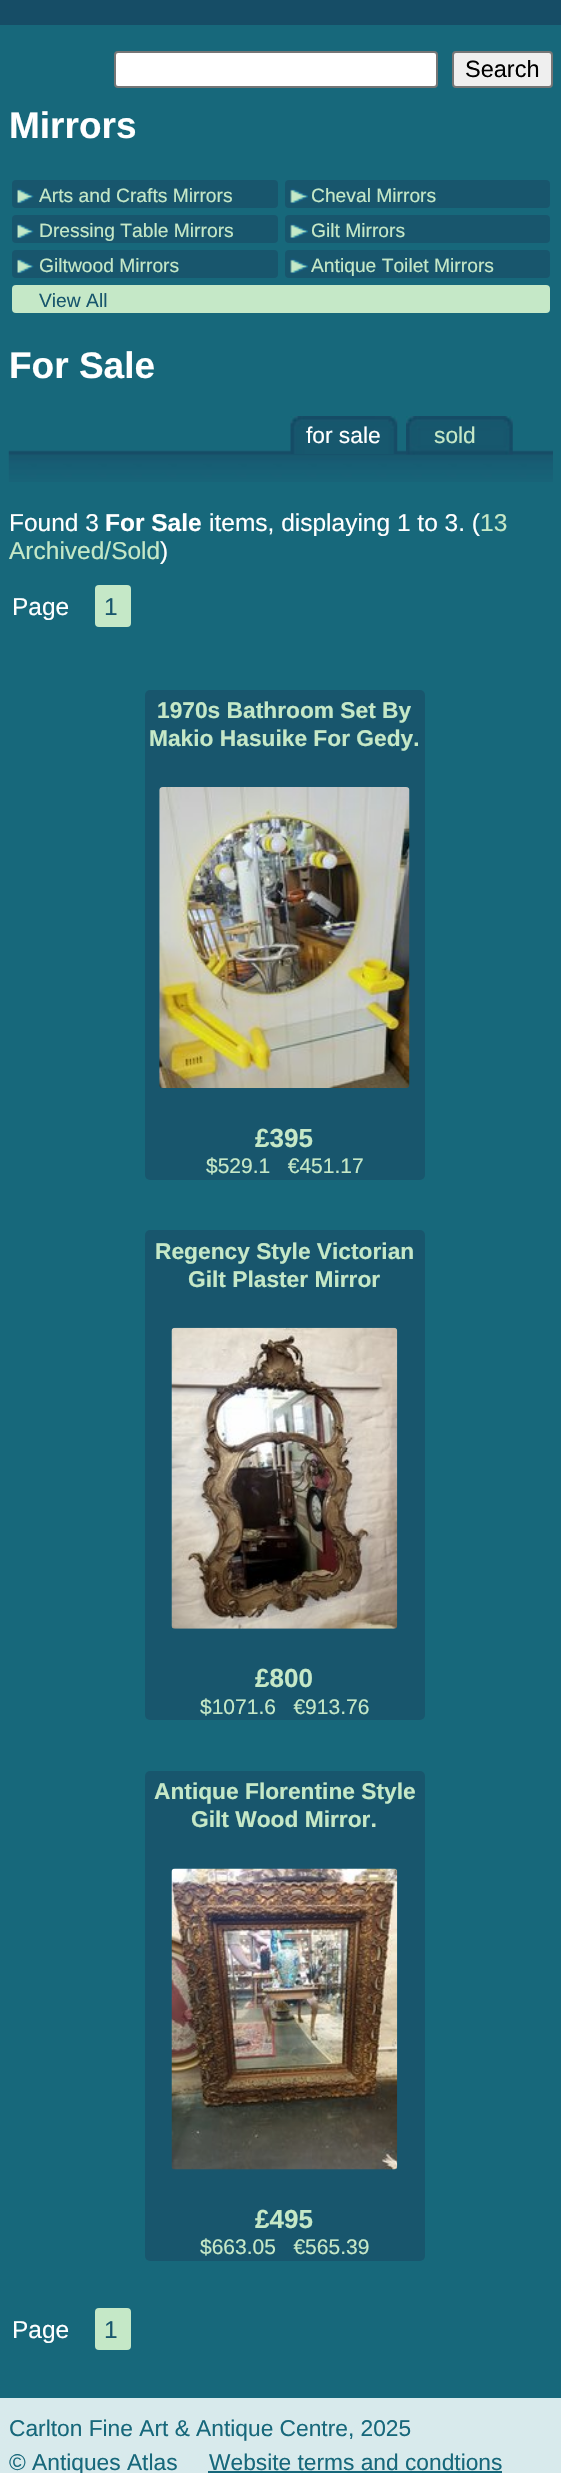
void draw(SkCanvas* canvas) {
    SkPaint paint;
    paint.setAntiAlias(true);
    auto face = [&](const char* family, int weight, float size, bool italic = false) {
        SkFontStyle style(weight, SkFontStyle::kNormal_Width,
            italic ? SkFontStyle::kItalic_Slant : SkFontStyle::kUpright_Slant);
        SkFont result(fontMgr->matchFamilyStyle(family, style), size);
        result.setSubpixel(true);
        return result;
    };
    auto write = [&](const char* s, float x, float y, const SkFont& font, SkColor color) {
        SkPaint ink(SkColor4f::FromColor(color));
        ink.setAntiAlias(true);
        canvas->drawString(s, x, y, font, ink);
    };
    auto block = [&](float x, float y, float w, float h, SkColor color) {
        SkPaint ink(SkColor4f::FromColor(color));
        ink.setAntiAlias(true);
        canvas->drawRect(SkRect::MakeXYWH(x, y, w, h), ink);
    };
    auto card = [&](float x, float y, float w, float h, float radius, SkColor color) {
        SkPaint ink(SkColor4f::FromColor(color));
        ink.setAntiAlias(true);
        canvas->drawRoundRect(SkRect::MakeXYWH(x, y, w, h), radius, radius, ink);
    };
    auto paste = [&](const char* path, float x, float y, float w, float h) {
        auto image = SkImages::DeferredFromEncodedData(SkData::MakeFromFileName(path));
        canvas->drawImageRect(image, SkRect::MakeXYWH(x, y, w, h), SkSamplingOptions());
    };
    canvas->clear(SkColorSetRGB(216, 234, 236));
    block(0, 0, 561, 25, SkColorSetRGB(22, 77, 102));
    block(0, 25, 561, 2373, SkColorSetRGB(23, 104, 123));
    paint.setColor(SK_ColorWHITE);
    canvas->drawRoundRect(SkRect::MakeXYWH(115, 52, 322, 35), 3, 3, paint);
    paint.setStyle(SkPaint::kStroke_Style);
    paint.setStrokeWidth(2);
    paint.setColor(SkColorSetRGB(118, 118, 118));
    canvas->drawRoundRect(SkRect::MakeXYWH(115, 52, 322, 35), 3, 3, paint);
    paint.setStyle(SkPaint::kFill_Style);
    paint.setColor(SkColorSetRGB(239, 239, 239));
    canvas->drawRoundRect(SkRect::MakeXYWH(453, 52, 99, 35), 3, 3, paint);
    paint.setStyle(SkPaint::kStroke_Style);
    paint.setColor(SkColorSetRGB(118, 118, 118));
    canvas->drawRoundRect(SkRect::MakeXYWH(453, 52, 99, 35), 3, 3, paint);
    auto kFont1 = face("Liberation Sans", 400, 23.5f);
    write("Search", 465, 77, kFont1, SK_ColorBLACK);
    auto kFont2 = face("Liberation Sans", 700, 37);
    write("Mirrors", 9, 138, kFont2, SK_ColorWHITE);
    card(12, 180, 266, 28, 4, SkColorSetRGB(24, 86, 109));
    paste("pic1.png", 17, 188, 17, 16);
    auto kFont3 = face("Liberation Sans", 400, 19.25f);
    write("Arts and Crafts Mirrors", 39, 202, kFont3, SkColorSetRGB(197, 232, 199));
    card(285, 180, 265, 28, 4, SkColorSetRGB(24, 86, 109));
    paste("pic2.png", 290, 188, 18, 16);
    write("Cheval Mirrors", 311, 202, kFont3, SkColorSetRGB(197, 232, 199));
    card(12, 215, 266, 28, 4, SkColorSetRGB(24, 86, 109));
    paste("pic1.png", 17, 223, 17, 16);
    write("Dressing Table Mirrors", 39, 237, kFont3, SkColorSetRGB(197, 232, 199));
    card(285, 215, 265, 28, 4, SkColorSetRGB(24, 86, 109));
    paste("pic2.png", 290, 223, 18, 16);
    write("Gilt Mirrors", 311, 237, kFont3, SkColorSetRGB(197, 232, 199));
    card(12, 250, 266, 28, 4, SkColorSetRGB(24, 86, 109));
    paste("pic1.png", 17, 258, 17, 16);
    write("Giltwood Mirrors", 39, 272, kFont3, SkColorSetRGB(197, 232, 199));
    card(285, 250, 265, 28, 4, SkColorSetRGB(24, 86, 109));
    paste("pic2.png", 290, 258, 18, 16);
    write("Antique Toilet Mirrors", 311, 272, kFont3, SkColorSetRGB(197, 232, 199));
    card(12, 285, 538, 28, 4, SkColorSetRGB(197, 232, 199));
    write("View All", 39, 307, kFont3, SkColorSetRGB(24, 86, 109));
    write("For Sale", 9, 378, kFont2, SK_ColorWHITE);
    paste("pic3.png", 8, 450, 545, 32);
    paste("pic4.png", 290, 416, 108, 38);
    auto kFont4 = face("Liberation Sans", 400, 22.75f);
    write("for sale", 306, 443, kFont4, SK_ColorWHITE);
    paste("pic5.png", 406, 416, 107, 39);
    write("sold", 434, 443, kFont4, SkColorSetRGB(197, 232, 199));
    auto kFont5 = face("Liberation Sans", 400, 24.5f);
    write("Found 3", 9, 531, kFont5, SK_ColorWHITE);
    auto kFont6 = face("Liberation Sans", 700, 24.5f);
    write("For Sale", 105, 531, kFont6, SK_ColorWHITE);
    write("items, displaying 1 to 3. (", 209, 531, kFont5, SK_ColorWHITE);
    write("13", 480, 531, kFont5, SkColorSetRGB(197, 232, 199));
    write("Archived/Sold", 9, 559, kFont5, SkColorSetRGB(197, 232, 199));
    write(")", 160, 559, kFont5, SK_ColorWHITE);
    write("Page", 12, 615, kFont5, SK_ColorWHITE);
    card(95, 585, 36, 42, 4, SkColorSetRGB(197, 232, 199));
    write("1", 104, 615, kFont5, SkColorSetRGB(24, 86, 109));
    card(145, 690, 280, 490, 5, SkColorSetRGB(24, 86, 109));
    auto kFont7 = face("Liberation Sans", 700, 22.75f);
    write("1970s Bathroom Set By", 157, 718, kFont7, SkColorSetRGB(197, 232, 199));
    write("Makio Hasuike For Gedy.", 149, 746, kFont7, SkColorSetRGB(197, 232, 199));
    paste("pic6.png", 159, 787, 251, 301);
    auto kFont8 = face("Liberation Sans", 700, 26);
    write("£395", 255, 1147, kFont8, SkColorSetRGB(197, 232, 199));
    auto kFont9 = face("Liberation Sans", 400, 21);
    write("$529.1   €451.17", 206, 1173, kFont9, SkColorSetRGB(197, 232, 199));
    card(145, 1230, 280, 490, 5, SkColorSetRGB(24, 86, 109));
    write("Regency Style Victorian", 155, 1259, kFont7, SkColorSetRGB(197, 232, 199));
    write("Gilt Plaster Mirror", 188, 1287, kFont7, SkColorSetRGB(197, 232, 199));
    paste("pic7.png", 171, 1327, 227, 302);
    write("£800", 255, 1687, kFont8, SkColorSetRGB(197, 232, 199));
    write("$1071.6   €913.76", 200, 1714, kFont9, SkColorSetRGB(197, 232, 199));
    card(145, 1771, 280, 490, 5, SkColorSetRGB(24, 86, 109));
    write("Antique Florentine Style", 154, 1799, kFont7, SkColorSetRGB(197, 232, 199));
    write("Gilt Wood Mirror.", 191, 1827, kFont7, SkColorSetRGB(197, 232, 199));
    paste("pic8.png", 171, 1868, 227, 302);
    write("£495", 255, 2228, kFont8, SkColorSetRGB(197, 232, 199));
    write("$663.05   €565.39", 200, 2254, kFont9, SkColorSetRGB(197, 232, 199));
    write("Page", 12, 2338, kFont5, SK_ColorWHITE);
    card(95, 2308, 36, 42, 4, SkColorSetRGB(197, 232, 199));
    write("1", 104, 2338, kFont5, SkColorSetRGB(24, 86, 109));
    write("Carlton Fine Art & Antique Centre, 2025", 9, 2436, kFont4, SkColorSetRGB(23, 104, 123));
    write("© Antiques Atlas", 9, 2470, kFont4, SkColorSetRGB(23, 104, 123));
    write("Website terms and condtions", 209, 2470, kFont4, SkColorSetRGB(23, 104, 123));
    block(208, 2471, 294, 2, SkColorSetRGB(23, 104, 123));
}
